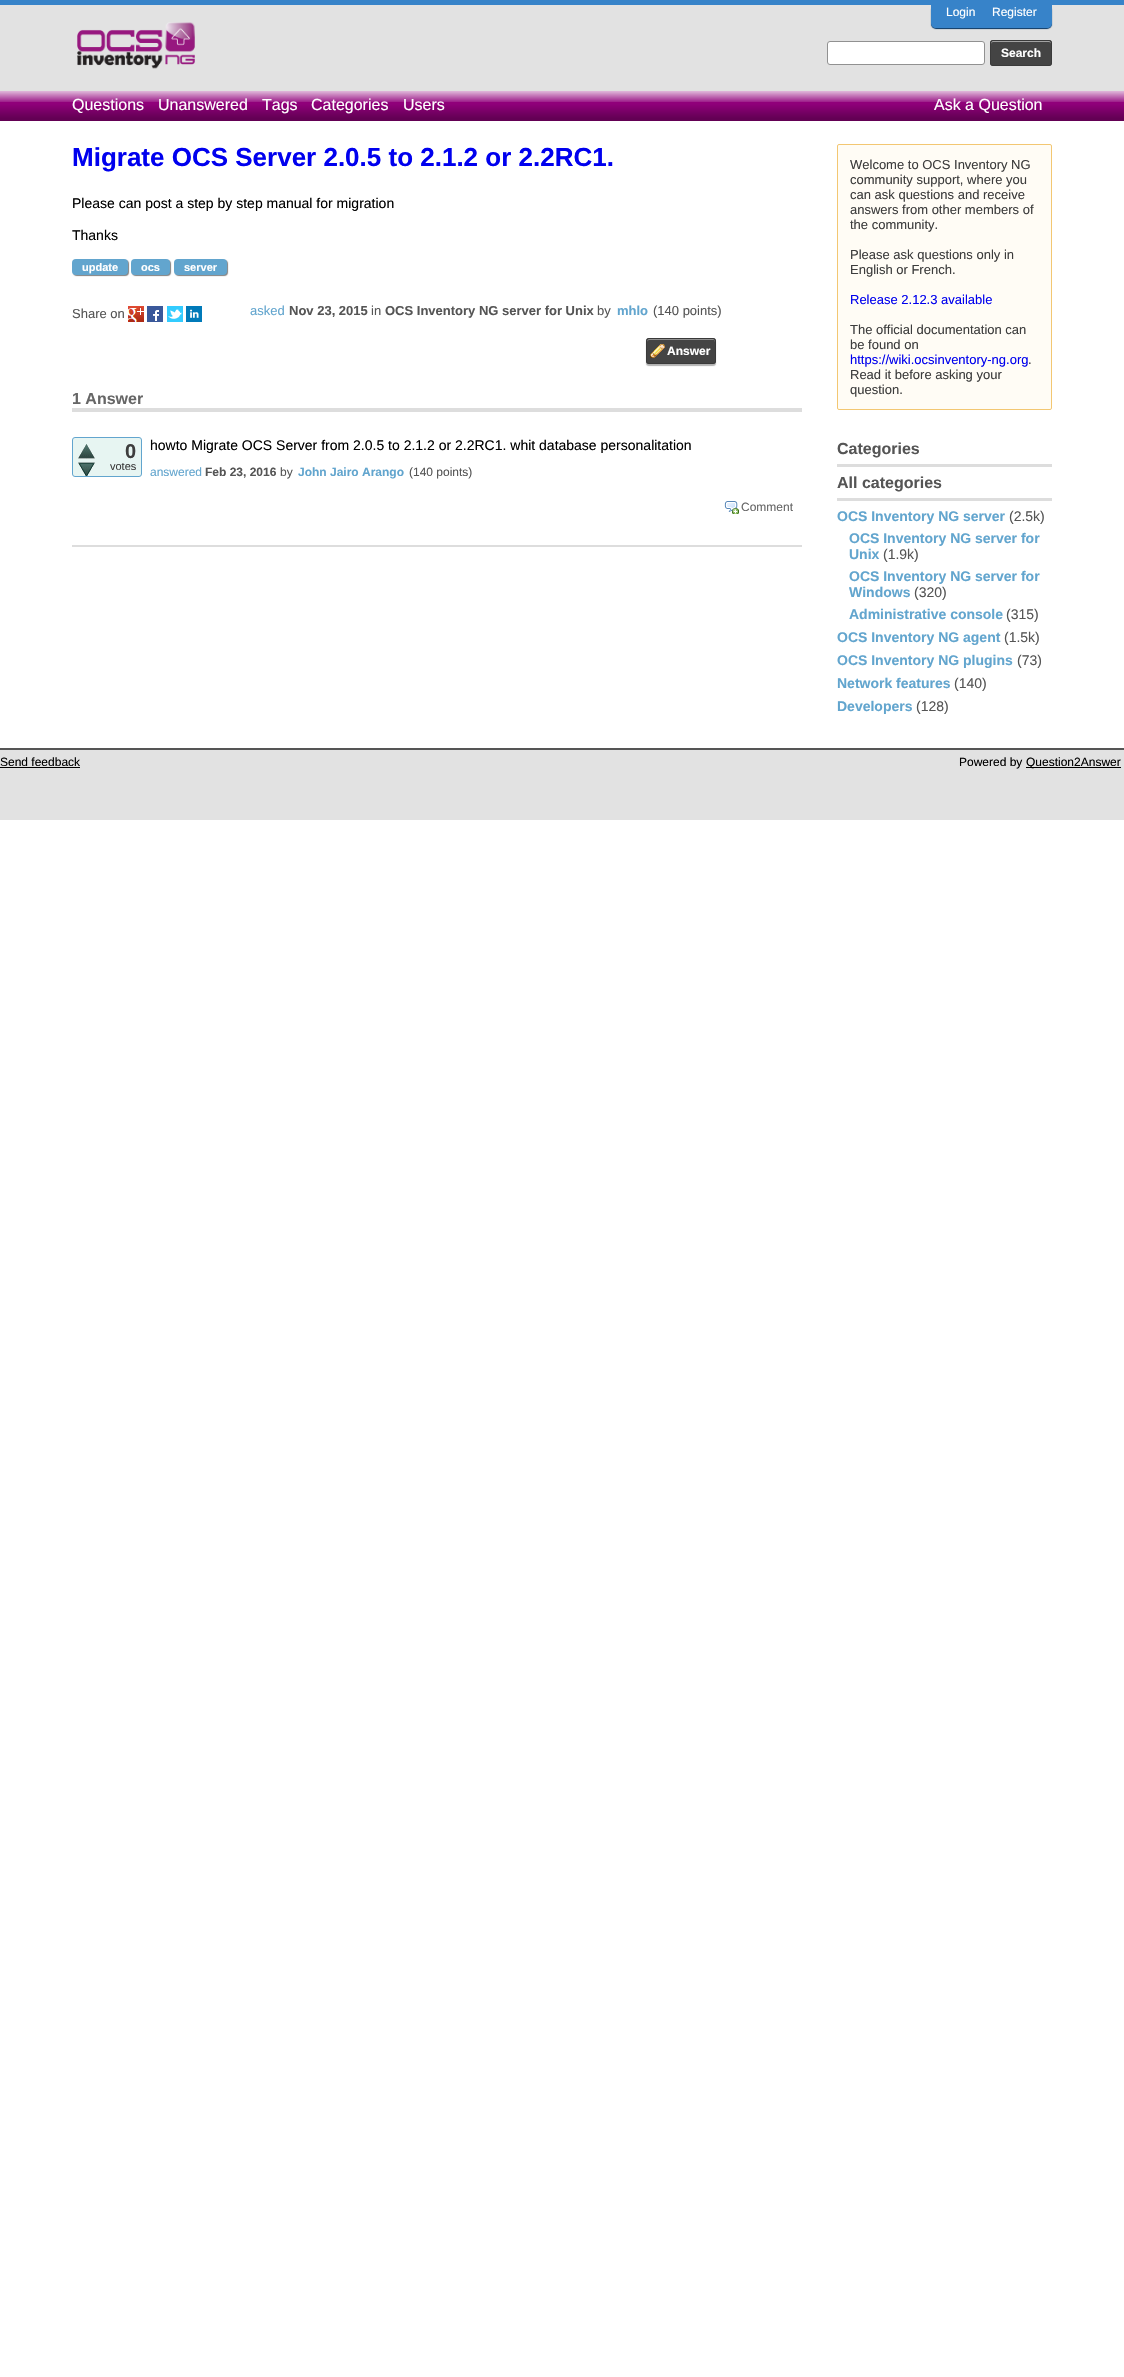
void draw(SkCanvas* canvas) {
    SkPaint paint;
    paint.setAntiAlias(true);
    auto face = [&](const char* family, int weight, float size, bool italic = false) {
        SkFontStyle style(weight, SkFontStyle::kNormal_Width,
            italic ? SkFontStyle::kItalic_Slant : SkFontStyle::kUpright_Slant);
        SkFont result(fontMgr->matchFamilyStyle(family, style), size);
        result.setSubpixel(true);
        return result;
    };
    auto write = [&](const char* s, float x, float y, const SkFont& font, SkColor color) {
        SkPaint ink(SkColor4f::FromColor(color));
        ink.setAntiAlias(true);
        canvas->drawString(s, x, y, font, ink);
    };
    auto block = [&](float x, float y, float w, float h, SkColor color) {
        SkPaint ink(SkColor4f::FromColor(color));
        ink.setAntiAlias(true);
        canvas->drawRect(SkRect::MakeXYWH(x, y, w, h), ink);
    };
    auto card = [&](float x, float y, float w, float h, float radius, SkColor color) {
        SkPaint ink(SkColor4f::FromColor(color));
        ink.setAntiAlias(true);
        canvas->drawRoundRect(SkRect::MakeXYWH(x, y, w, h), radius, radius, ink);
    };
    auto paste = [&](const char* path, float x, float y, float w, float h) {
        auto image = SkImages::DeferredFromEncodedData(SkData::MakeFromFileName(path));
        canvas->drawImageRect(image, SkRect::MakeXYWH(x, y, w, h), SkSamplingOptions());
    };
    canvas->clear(SK_ColorWHITE);
    paste("pic1.png", 0, 5, 1124, 116);
    paint.setColor(SkColorSetRGB(2, 51, 98));
    paint.setMaskFilter(SkMaskFilter::MakeBlur(kNormal_SkBlurStyle, 0.5f));
    canvas->drawRoundRect(SkRect::MakeXYWH(931, 6, 121, 23), 5, 5, paint);
    paint.setMaskFilter(nullptr);
    block(0, 0, 1124, 5, SkColorSetRGB(55, 131, 201));
    paint.setColor(SkColorSetRGB(55, 131, 201));
    canvas->drawPath(SkPathBuilder().moveTo(931, 5).lineTo(1052, 5).lineTo(1052, 23).cubicTo(1052, 26, 1050, 28, 1047, 28).lineTo(936, 28).cubicTo(933, 28, 931, 26, 931, 23).close().detach(), paint);
    auto kFont1 = face("Liberation Sans", 400, 12);
    write("Login", 946, 16, kFont1, SK_ColorWHITE);
    write("Register", 992, 16, kFont1, SK_ColorWHITE);
    paste("pic2.png", 77, 22, 118, 47);
    paint.setColor(SK_ColorWHITE);
    canvas->drawRoundRect(SkRect::MakeXYWH(827.5f, 41.5f, 157, 23), 2.5f, 2.5f, paint);
    paint.setStyle(SkPaint::kStroke_Style);
    paint.setStrokeWidth(1);
    paint.setColor(SkColorSetRGB(145, 145, 145));
    canvas->drawRoundRect(SkRect::MakeXYWH(827.5f, 41.5f, 157, 23), 2.5f, 2.5f, paint);
    card(990, 40, 62, 26, 3, SkColorSetRGB(68, 68, 68));
    paint.setStyle(SkPaint::kFill_Style);
    paint.setColor(SkColorSetRGB(162, 162, 162));
    canvas->drawPath(SkPathBuilder().moveTo(993, 42).lineTo(1049, 42).cubicTo(1050, 42, 1051, 43, 1051, 44).cubicTo(1051, 38, 1043, 41, 1040, 41).lineTo(1002, 41).cubicTo(999, 41, 991, 38, 991, 44).cubicTo(991, 43, 992, 42, 993, 42).close().detach(), paint);
    paint.setStyle(SkPaint::kStroke_Style);
    paint.setColor(SkColorSetRGB(58, 58, 58));
    canvas->drawRoundRect(SkRect::MakeXYWH(990.5f, 40.5f, 61, 25), 2.5f, 2.5f, paint);
    auto kFont2 = face("Liberation Sans", 700, 12);
    write("Search", 1001, 57, kFont2, SK_ColorWHITE);
    auto kFont3 = face("Liberation Sans", 400, 16);
    write("Questions", 72, 110, kFont3, SK_ColorWHITE);
    write("Unanswered", 158, 110, kFont3, SK_ColorWHITE);
    write("Tags", 262, 110, kFont3, SK_ColorWHITE);
    write("Categories", 311, 110, kFont3, SK_ColorWHITE);
    write("Users", 403, 110, kFont3, SK_ColorWHITE);
    write("Ask a Question", 934, 110, kFont3, SK_ColorWHITE);
    auto kFont4 = face("Liberation Sans", 700, 26);
    write("Migrate OCS Server 2.0.5 to 2.1.2 or 2.2RC1.", 72, 166, kFont4, SkColorSetRGB(0, 0, 238));
    auto kFont5 = face("Liberation Sans", 400, 14);
    write("Please can post a step by step manual for migration", 72, 208, kFont5, SK_ColorBLACK);
    write("Thanks", 72, 240, kFont5, SK_ColorBLACK);
    paint.setStyle(SkPaint::kFill_Style);
    paint.setColor(SkColorSetRGB(129, 129, 129));
    paint.setMaskFilter(SkMaskFilter::MakeBlur(kNormal_SkBlurStyle, 0.5f));
    canvas->drawRoundRect(SkRect::MakeXYWH(73, 260, 56, 16), 4, 4, paint);
    paint.setMaskFilter(nullptr);
    card(72, 259, 56, 16, 4, SkColorSetRGB(98, 165, 206));
    auto kFont6 = face("Liberation Sans", 700, 11);
    write("update", 82, 271, kFont6, SK_ColorWHITE);
    paint.setMaskFilter(SkMaskFilter::MakeBlur(kNormal_SkBlurStyle, 0.5f));
    canvas->drawRoundRect(SkRect::MakeXYWH(132, 260, 39, 16), 4, 4, paint);
    paint.setMaskFilter(nullptr);
    card(131, 259, 39, 16, 4, SkColorSetRGB(98, 165, 206));
    write("ocs", 141, 271, kFont6, SK_ColorWHITE);
    paint.setMaskFilter(SkMaskFilter::MakeBlur(kNormal_SkBlurStyle, 0.5f));
    canvas->drawRoundRect(SkRect::MakeXYWH(175, 260, 53, 16), 4, 4, paint);
    paint.setMaskFilter(nullptr);
    card(174, 259, 53, 16, 4, SkColorSetRGB(98, 165, 206));
    write("server", 184, 271, kFont6, SK_ColorWHITE);
    auto kFont7 = face("Liberation Sans", 400, 13);
    write("Share on", 72, 318, kFont7, SkColorSetRGB(85, 85, 85));
    paste("pic3.png", 128, 306, 16, 16);
    paste("pic4.png", 147, 306, 16, 16);
    paste("pic5.png", 167, 306, 16, 16);
    paste("pic6.png", 186, 306, 16, 16);
    write("asked", 250, 315, kFont7, SkColorSetRGB(98, 165, 206));
    auto kFont8 = face("Liberation Sans", 700, 13);
    write("Nov 23, 2015", 289, 315, kFont8, SkColorSetRGB(85, 85, 85));
    write("in", 371, 315, kFont7, SkColorSetRGB(85, 85, 85));
    write("OCS Inventory NG server for Unix", 385, 315, kFont8, SkColorSetRGB(85, 85, 85));
    write("by", 597, 315, kFont7, SkColorSetRGB(85, 85, 85));
    write("mhlo", 617, 315, kFont8, SkColorSetRGB(98, 165, 206));
    write("(140 points)", 653, 315, kFont7, SkColorSetRGB(85, 85, 85));
    paint.setColor(SkColorSetARGB(77, 0, 0, 0));
    paint.setMaskFilter(SkMaskFilter::MakeBlur(kNormal_SkBlurStyle, 0.5f));
    canvas->drawRoundRect(SkRect::MakeXYWH(646, 340, 70, 26), 3, 3, paint);
    paint.setMaskFilter(nullptr);
    card(646, 338, 70, 26, 3, SkColorSetRGB(68, 68, 68));
    paste("pic7.png", 650, 344, 15, 14);
    paint.setColor(SkColorSetRGB(143, 143, 143));
    canvas->drawPath(SkPathBuilder().moveTo(649, 340).lineTo(714, 340).lineTo(715, 342).cubicTo(715, 336, 706, 339, 702, 339).lineTo(660, 339).cubicTo(656, 339, 647, 336, 647, 342).cubicTo(647, 341, 648, 340, 649, 340).close().detach(), paint);
    paint.setStyle(SkPaint::kStroke_Style);
    paint.setColor(SkColorSetRGB(58, 58, 58));
    canvas->drawRoundRect(SkRect::MakeXYWH(646.5f, 338.5f, 69, 25), 2.5f, 2.5f, paint);
    write("Answer", 667, 355, kFont2, SK_ColorWHITE);
    block(72, 408, 730, 4, SkColorSetRGB(221, 221, 221));
    auto kFont9 = face("Liberation Sans", 700, 16);
    write("1 Answer", 72, 404, kFont9, SkColorSetRGB(102, 102, 102));
    block(72, 545, 730, 2, SkColorSetRGB(221, 221, 221));
    paint.setStyle(SkPaint::kFill_Style);
    paint.setColor(SkColorSetRGB(231, 245, 242));
    canvas->drawRoundRect(SkRect::MakeXYWH(72.5f, 437.5f, 69, 39), 2.5f, 2.5f, paint);
    paint.setStyle(SkPaint::kStroke_Style);
    paint.setColor(SkColorSetRGB(98, 165, 206));
    canvas->drawRoundRect(SkRect::MakeXYWH(72.5f, 437.5f, 69, 39), 2.5f, 2.5f, paint);
    paste("pic8.png", 78, 444, 17, 15);
    paste("pic9.png", 78, 462, 17, 14);
    auto kFont10 = face("Liberation Sans", 700, 20);
    write("0", 125, 458, kFont10, SkColorSetRGB(61, 61, 61));
    auto kFont11 = face("Liberation Sans", 400, 11);
    write("votes", 110, 470, kFont11, SkColorSetRGB(61, 61, 61));
    write("howto Migrate OCS Server from 2.0.5 to 2.1.2 or 2.2RC1. whit database personalitation", 150, 450, kFont5, SK_ColorBLACK);
    write("answered", 150, 476, kFont1, SkColorSetRGB(98, 165, 206));
    write("Feb 23, 2016", 205, 476, kFont2, SkColorSetRGB(85, 85, 85));
    write("by", 280, 476, kFont1, SkColorSetRGB(85, 85, 85));
    write("John Jairo Arango", 298, 476, kFont2, SkColorSetRGB(98, 165, 206));
    write("(140 points)", 409, 476, kFont1, SkColorSetRGB(85, 85, 85));
    paste("pic10.png", 724, 501, 15, 13);
    write("Comment", 741, 511, kFont1, SkColorSetRGB(102, 102, 102));
    paint.setStyle(SkPaint::kFill_Style);
    paint.setColor(SkColorSetRGB(255, 252, 245));
    canvas->drawRoundRect(SkRect::MakeXYWH(837.5f, 144.5f, 214, 265), 1.5f, 1.5f, paint);
    paint.setStyle(SkPaint::kStroke_Style);
    paint.setColor(SkColorSetRGB(243, 199, 114));
    canvas->drawRoundRect(SkRect::MakeXYWH(837.5f, 144.5f, 214, 265), 1.5f, 1.5f, paint);
    write("Welcome to OCS Inventory NG", 850, 169, kFont7, SkColorSetRGB(61, 61, 61));
    write("community support, where you", 850, 184, kFont7, SkColorSetRGB(61, 61, 61));
    write("can ask questions and receive", 850, 199, kFont7, SkColorSetRGB(61, 61, 61));
    write("answers from other members of", 850, 214, kFont7, SkColorSetRGB(61, 61, 61));
    write("the community.", 850, 229, kFont7, SkColorSetRGB(61, 61, 61));
    write("Please ask questions only in", 850, 259, kFont7, SkColorSetRGB(61, 61, 61));
    write("English or French.", 850, 274, kFont7, SkColorSetRGB(61, 61, 61));
    write("Release 2.12.3 available", 850, 304, kFont7, SkColorSetRGB(0, 0, 238));
    write("The official documentation can", 850, 334, kFont7, SkColorSetRGB(61, 61, 61));
    write("be found on", 850, 349, kFont7, SkColorSetRGB(61, 61, 61));
    write("https://wiki.ocsinventory-ng.org", 850, 364, kFont7, SkColorSetRGB(0, 0, 238));
    write(".", 1028, 364, kFont7, SkColorSetRGB(61, 61, 61));
    write("Read it before asking your", 850, 379, kFont7, SkColorSetRGB(61, 61, 61));
    write("question.", 850, 394, kFont7, SkColorSetRGB(61, 61, 61));
    block(837, 464, 215, 3, SkColorSetRGB(221, 221, 221));
    write("Categories", 837, 454, kFont9, SkColorSetRGB(85, 85, 85));
    block(837, 498, 215, 3, SkColorSetRGB(221, 221, 221));
    write("All categories", 837, 488, kFont9, SkColorSetRGB(85, 85, 85));
    auto kFont12 = face("Liberation Sans", 700, 14);
    write("OCS Inventory NG server", 837, 521, kFont12, SkColorSetRGB(98, 165, 206));
    write("(2.5k)", 1009, 521, kFont5, SkColorSetRGB(85, 85, 85));
    write("OCS Inventory NG server for", 849, 543, kFont12, SkColorSetRGB(98, 165, 206));
    write("Unix", 849, 559, kFont12, SkColorSetRGB(98, 165, 206));
    write("(1.9k)", 883, 559, kFont5, SkColorSetRGB(85, 85, 85));
    write("OCS Inventory NG server for", 849, 581, kFont12, SkColorSetRGB(98, 165, 206));
    write("Windows", 849, 597, kFont12, SkColorSetRGB(98, 165, 206));
    write("(320)", 914, 597, kFont5, SkColorSetRGB(85, 85, 85));
    write("Administrative console", 849, 619, kFont12, SkColorSetRGB(98, 165, 206));
    write("(315)", 1006, 619, kFont5, SkColorSetRGB(85, 85, 85));
    write("OCS Inventory NG agent", 837, 642, kFont12, SkColorSetRGB(98, 165, 206));
    write("(1.5k)", 1004, 642, kFont5, SkColorSetRGB(85, 85, 85));
    write("OCS Inventory NG plugins", 837, 665, kFont12, SkColorSetRGB(98, 165, 206));
    write("(73)", 1017, 665, kFont5, SkColorSetRGB(85, 85, 85));
    write("Network features", 837, 688, kFont12, SkColorSetRGB(98, 165, 206));
    write("(140)", 954, 688, kFont5, SkColorSetRGB(85, 85, 85));
    write("Developers", 837, 711, kFont12, SkColorSetRGB(98, 165, 206));
    write("(128)", 916, 711, kFont5, SkColorSetRGB(85, 85, 85));
    block(0, 750, 1124, 70, SkColorSetRGB(226, 226, 226));
    block(0, 748, 1124, 2, SkColorSetRGB(85, 85, 85));
    write("Send feedback", 0, 766, kFont1, SK_ColorBLACK);
    block(0, 767, 80, 1, SK_ColorBLACK);
    write("Powered by", 959, 766, kFont1, SK_ColorBLACK);
    block(1026, 767, 95, 1, SK_ColorBLACK);
    write("Question2Answer", 1026, 766, kFont1, SK_ColorBLACK);
}
